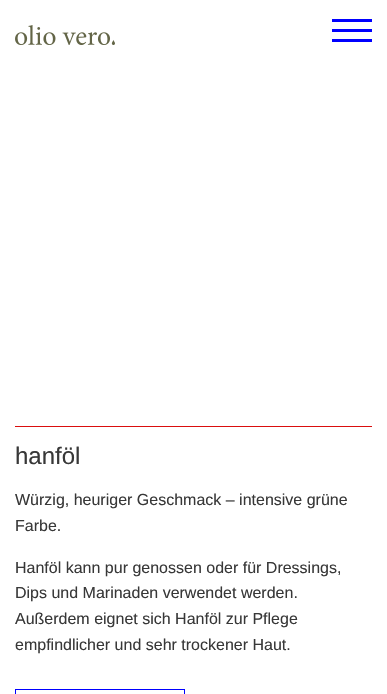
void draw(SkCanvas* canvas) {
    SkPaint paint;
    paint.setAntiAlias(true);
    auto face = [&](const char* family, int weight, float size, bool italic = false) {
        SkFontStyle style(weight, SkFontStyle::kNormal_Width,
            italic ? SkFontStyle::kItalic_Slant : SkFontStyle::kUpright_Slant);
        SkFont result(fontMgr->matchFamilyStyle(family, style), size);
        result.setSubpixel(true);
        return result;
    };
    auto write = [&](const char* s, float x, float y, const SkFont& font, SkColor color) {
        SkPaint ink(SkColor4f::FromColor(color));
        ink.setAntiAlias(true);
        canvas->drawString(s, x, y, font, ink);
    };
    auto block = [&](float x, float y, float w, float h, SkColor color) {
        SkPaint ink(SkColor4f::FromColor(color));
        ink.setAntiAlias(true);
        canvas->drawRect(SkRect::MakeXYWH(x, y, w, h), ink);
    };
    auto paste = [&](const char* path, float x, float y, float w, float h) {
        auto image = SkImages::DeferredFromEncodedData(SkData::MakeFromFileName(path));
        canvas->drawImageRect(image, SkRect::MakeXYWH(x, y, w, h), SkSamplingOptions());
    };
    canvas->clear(SK_ColorWHITE);
    paste("pic1.png", 15, 25, 100, 20);
    block(332, 29, 40, 3, SkColorSetRGB(0, 0, 255));
    block(332, 19, 40, 3, SkColorSetRGB(0, 0, 255));
    block(332, 39, 40, 3, SkColorSetRGB(0, 0, 255));
    block(15, 426, 357, 1, SkColorSetRGB(218, 14, 14));
    auto kFont1 = face("Liberation Sans", 400, 24);
    write("hanföl", 15, 464, kFont1, SkColorSetRGB(56, 56, 56));
    auto kFont2 = face("Liberation Sans", 400, 16);
    write("Würzig, heuriger Geschmack – intensive grüne", 15, 505, kFont2, SkColorSetRGB(56, 56, 56));
    write("Farbe.", 15, 531, kFont2, SkColorSetRGB(56, 56, 56));
    write("Hanföl kann pur genossen oder für Dressings,", 15, 573, kFont2, SkColorSetRGB(56, 56, 56));
    write("Dips und Marinaden verwendet werden.", 15, 598, kFont2, SkColorSetRGB(56, 56, 56));
    write("Außerdem eignet sich Hanföl zur Pflege", 15, 624, kFont2, SkColorSetRGB(56, 56, 56));
    write("empfindlicher und sehr trockener Haut.", 15, 650, kFont2, SkColorSetRGB(56, 56, 56));
    paint.setStyle(SkPaint::kStroke_Style);
    paint.setStrokeWidth(1);
    paint.setColor(SkColorSetRGB(0, 0, 255));
    canvas->drawRect(SkRect::MakeXYWH(15.5f, 689.5f, 169, 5), paint);
}
